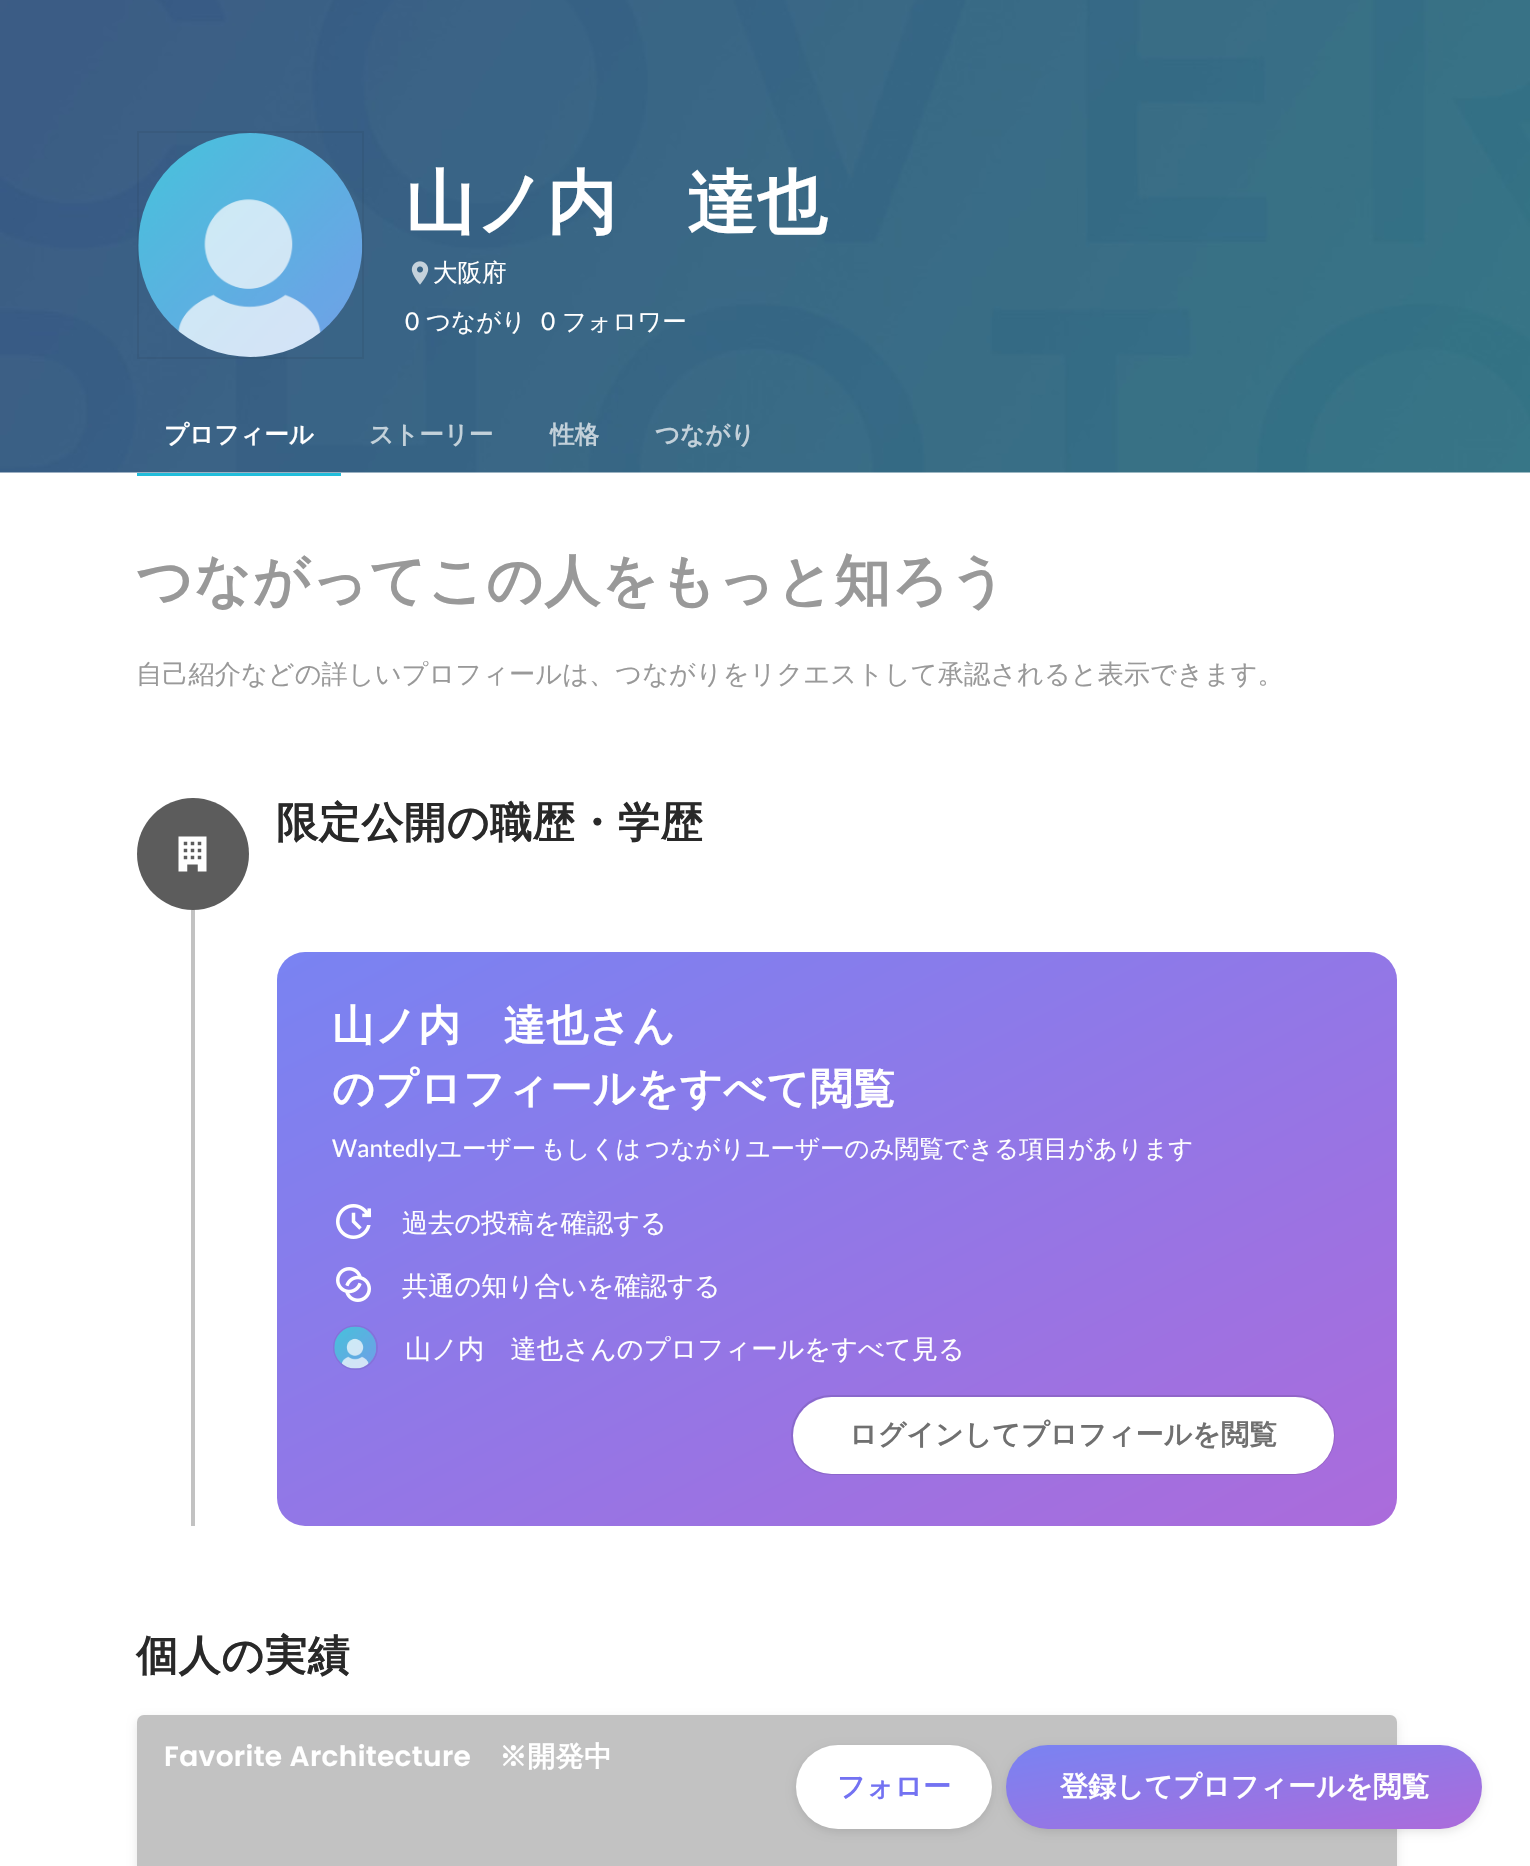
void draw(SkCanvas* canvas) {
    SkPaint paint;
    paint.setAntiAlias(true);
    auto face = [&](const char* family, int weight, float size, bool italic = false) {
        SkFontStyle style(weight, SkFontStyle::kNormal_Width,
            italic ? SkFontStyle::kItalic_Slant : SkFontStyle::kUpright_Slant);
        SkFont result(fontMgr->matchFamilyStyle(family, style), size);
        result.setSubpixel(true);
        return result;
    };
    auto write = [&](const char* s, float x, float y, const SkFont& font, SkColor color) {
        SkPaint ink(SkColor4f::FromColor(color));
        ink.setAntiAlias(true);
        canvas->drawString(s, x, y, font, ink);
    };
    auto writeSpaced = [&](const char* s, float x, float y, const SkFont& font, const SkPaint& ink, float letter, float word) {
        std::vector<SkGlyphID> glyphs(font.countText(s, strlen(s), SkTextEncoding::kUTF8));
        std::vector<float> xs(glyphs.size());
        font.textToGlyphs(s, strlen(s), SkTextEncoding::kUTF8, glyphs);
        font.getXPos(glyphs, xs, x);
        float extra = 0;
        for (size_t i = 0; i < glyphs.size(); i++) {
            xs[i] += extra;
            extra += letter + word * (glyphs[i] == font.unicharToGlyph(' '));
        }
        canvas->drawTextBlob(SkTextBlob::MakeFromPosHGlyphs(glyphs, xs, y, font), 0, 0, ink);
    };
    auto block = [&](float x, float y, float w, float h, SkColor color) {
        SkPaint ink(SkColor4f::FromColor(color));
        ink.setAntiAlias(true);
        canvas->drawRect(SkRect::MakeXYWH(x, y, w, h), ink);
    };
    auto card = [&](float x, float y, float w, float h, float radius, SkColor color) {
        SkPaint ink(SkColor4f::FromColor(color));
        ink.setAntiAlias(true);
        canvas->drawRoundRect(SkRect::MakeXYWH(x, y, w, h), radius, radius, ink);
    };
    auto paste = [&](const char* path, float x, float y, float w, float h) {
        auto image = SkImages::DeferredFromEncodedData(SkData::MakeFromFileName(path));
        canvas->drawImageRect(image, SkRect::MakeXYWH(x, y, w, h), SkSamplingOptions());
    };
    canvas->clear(SK_ColorWHITE);
    paste("pic1.png", 0, 0, 1530, 473);
    paint.setStyle(SkPaint::kStroke_Style);
    paint.setStrokeWidth(2);
    paint.setColor(SkColorSetARGB(15, 0, 0, 0));
    canvas->drawRect(SkRect::MakeXYWH(138, 132, 225, 226), paint);
    paste("pic2.png", 138, 133, 225, 224);
    auto kFont1 = face("WenQuanYi Zen Hei", 700, 70);
    write("山ノ内　達也", 405, 227, kFont1, SK_ColorWHITE);
    paste("pic3.png", 411, 261, 18, 24);
    auto kFont2 = face("WenQuanYi Zen Hei", 500, 24.5f);
    write("大阪府", 433, 281, kFont2, SK_ColorWHITE);
    auto kFont3 = face("Lato", 400, 24.5f);
    write("0", 405, 330, kFont3, SK_ColorWHITE);
    write("つながり", 426, 330, kFont2, SK_ColorWHITE);
    write("0", 541, 330, kFont3, SK_ColorWHITE);
    write("フォロワー", 562, 330, kFont2, SK_ColorWHITE);
    block(137, 473, 204, 3, SkColorSetRGB(33, 189, 219));
    auto kFont4 = face("WenQuanYi Zen Hei", 700, 24.5f);
    write("プロフィール", 164, 443, kFont4, SK_ColorWHITE);
    write("ストーリー", 369, 443, kFont4, SkColorSetRGB(195, 209, 218));
    write("性格", 550, 443, kFont4, SkColorSetRGB(195, 209, 218));
    write("つながり", 655, 443, kFont4, SkColorSetRGB(195, 209, 218));
    canvas->save();
    canvas->clipPath(SkPathBuilder(SkPathFillType::kEvenOdd).moveTo(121, 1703).lineTo(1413, 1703).lineTo(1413, 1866).lineTo(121, 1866).close().moveTo(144, 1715).lineTo(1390, 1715).cubicTo(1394, 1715, 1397, 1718, 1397, 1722).lineTo(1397, 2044).cubicTo(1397, 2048, 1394, 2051, 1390, 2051).lineTo(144, 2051).cubicTo(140, 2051, 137, 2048, 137, 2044).lineTo(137, 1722).cubicTo(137, 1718, 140, 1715, 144, 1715).close().detach(), true);
    paint.setStyle(SkPaint::kFill_Style);
    paint.setColor(SkColorSetARGB(26, 0, 0, 0));
    paint.setMaskFilter(SkMaskFilter::MakeBlur(kNormal_SkBlurStyle, 5));
    canvas->drawRoundRect(SkRect::MakeXYWH(137, 1719, 1260, 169), 7, 7, paint);
    paint.setMaskFilter(nullptr);
    canvas->restore();
    card(137, 1715, 1260, 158, 7, SkColorSetARGB(61, 0, 0, 0));
    paint.setMaskFilter(SkMaskFilter::MakeBlur(kNormal_SkBlurStyle, 5));
    canvas->drawRoundRect(SkRect::MakeXYWH(796, 1748, 196, 84), 42, 42, paint);
    paint.setMaskFilter(nullptr);
    card(796, 1745, 196, 84, 42, SK_ColorWHITE);
    auto kFont5 = face("WenQuanYi Zen Hei", 700, 28);
    write("フォロー", 837, 1796, kFont5, SkColorSetRGB(115, 114, 242));
    paint.setMaskFilter(SkMaskFilter::MakeBlur(kNormal_SkBlurStyle, 5));
    canvas->drawRoundRect(SkRect::MakeXYWH(1006, 1748, 476, 84), 42, 42, paint);
    paint.setMaskFilter(nullptr);
    {
        const SkColor colors[] = {SkColorSetRGB(121, 131, 242), SkColorSetRGB(171, 107, 219)};
        const float stops[] = {0, 1};
        const SkPoint ends[] = {{1230, 1705}, {1259, 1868}};
        paint.setShader(SkGradientShader::MakeLinear(ends, colors, stops, 2, SkTileMode::kClamp));
        paint.setAlpha(255);
    }
    canvas->drawRoundRect(SkRect::MakeXYWH(1006, 1745, 476, 84), 42, 42, paint);
    write("登録してプロフィールを閲覧", 1060, 1796, kFont5, SK_ColorWHITE);
    auto kFont6 = face("WenQuanYi Zen Hei", 700, 56);
    paint.setShader(nullptr);
    paint.setColor(SkColorSetRGB(153, 153, 153));
    writeSpaced("つながってこの人をもっと知ろう", 136, 600, kFont6, paint, 1, 0);
    auto kFont7 = face("WenQuanYi Zen Hei", 500, 26.25f);
    write("自己紹介などの詳しいプロフィールは、つながりをリクエストして承認されると表示できます。", 136, 683, kFont7, SkColorSetRGB(153, 153, 153));
    block(191, 798, 4, 728, SkColorSetRGB(194, 194, 194));
    paint.setColor(SkColorSetRGB(92, 92, 92));
    canvas->drawCircle(193, 854, 56, paint);
    paste("pic4.png", 178, 836, 29, 36);
    auto kFont8 = face("WenQuanYi Zen Hei", 700, 42);
    paint.setColor(SkColorSetRGB(41, 41, 41));
    writeSpaced("限定公開の職歴・学歴", 276, 837, kFont8, paint, 0.6f, 0);
    {
        const SkColor colors[] = {SkColorSetRGB(121, 131, 242), SkColorSetRGB(171, 107, 219)};
        const float stops[] = {0, 1};
        const SkPoint ends[] = {{604, 784}, {1069, 1694}};
        paint.setShader(SkGradientShader::MakeLinear(ends, colors, stops, 2, SkTileMode::kClamp));
        paint.setAlpha(255);
    }
    canvas->drawRoundRect(SkRect::MakeXYWH(277, 952, 1120, 574), 28, 28, paint);
    paint.setShader(nullptr);
    paint.setColor(SK_ColorWHITE);
    writeSpaced("山ノ内　達也さん", 332, 1040, kFont8, paint, 0.6f, 0);
    writeSpaced("のプロフィールをすべて閲覧", 332, 1103, kFont8, paint, 0.6f, 0);
    write("Wantedly", 332, 1157, kFont3, SK_ColorWHITE);
    writeSpaced("ユーザー もしくは つながりユーザーのみ閲覧できる項目があります", 437, 1157, kFont2, paint, 0, -3);
    paste("pic5.png", 336, 1204, 35, 35);
    write("過去の投稿を確認する", 402, 1232, kFont7, SK_ColorWHITE);
    paste("pic6.png", 336, 1267, 35, 35);
    write("共通の知り合いを確認する", 402, 1295, kFont7, SK_ColorWHITE);
    paint.setStyle(SkPaint::kStroke_Style);
    paint.setColor(SkColorSetRGB(132, 114, 219));
    canvas->drawCircle(355.5f, 1347.5f, 21.5f, paint);
    paste("pic7.png", 334, 1326, 42, 43);
    write("山ノ内　達也さんのプロフィールをすべて見る", 405, 1358, kFont7, SK_ColorWHITE);
    paint.setColor(SkColorSetARGB(26, 0, 0, 0));
    canvas->drawRoundRect(SkRect::MakeXYWH(792, 1396, 542, 78), 39, 39, paint);
    card(793, 1397, 541, 77, 38.5f, SK_ColorWHITE);
    write("ログインしてプロフィールを閲覧", 849, 1444, kFont5, SkColorSetRGB(112, 112, 112));
    paint.setStyle(SkPaint::kFill_Style);
    paint.setColor(SkColorSetRGB(41, 41, 41));
    writeSpaced("個人の実績", 136, 1670, kFont8, paint, 0.6f, 0);
    auto kFont9 = face("Poppins", 600, 28);
    paint.setColor(SK_ColorWHITE);
    writeSpaced("Favorite Architecture", 164, 1766, kFont9, paint, 0.35f, 0);
    writeSpaced("※開発中", 499, 1766, kFont5, paint, 0.35f, 0);
}
